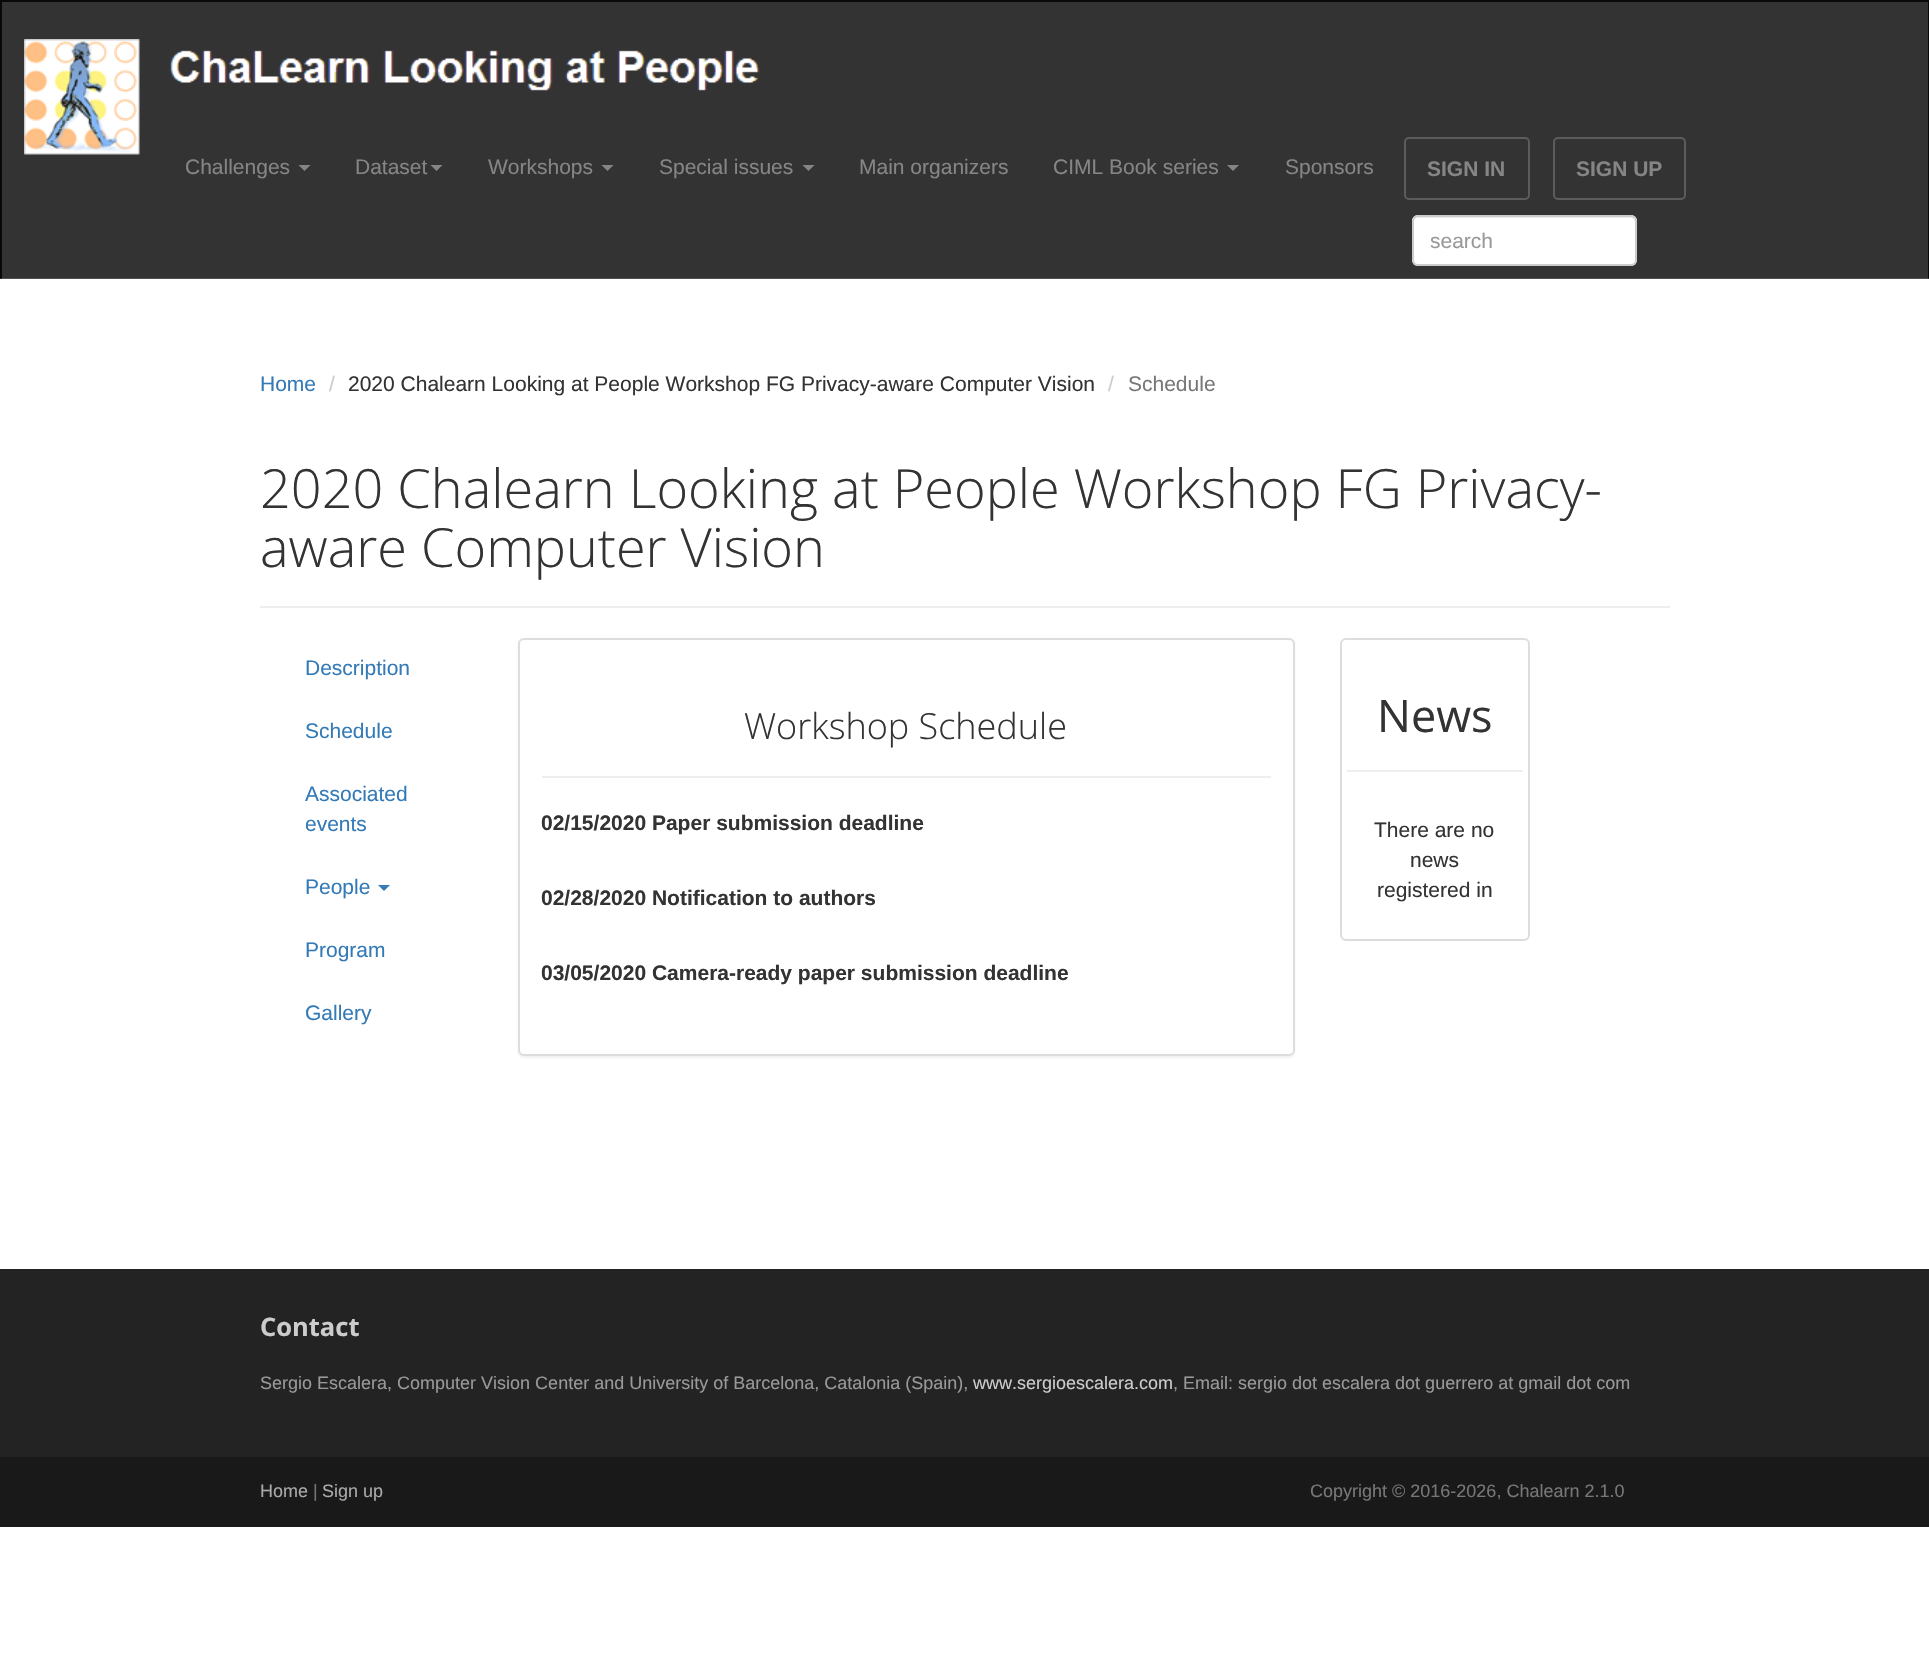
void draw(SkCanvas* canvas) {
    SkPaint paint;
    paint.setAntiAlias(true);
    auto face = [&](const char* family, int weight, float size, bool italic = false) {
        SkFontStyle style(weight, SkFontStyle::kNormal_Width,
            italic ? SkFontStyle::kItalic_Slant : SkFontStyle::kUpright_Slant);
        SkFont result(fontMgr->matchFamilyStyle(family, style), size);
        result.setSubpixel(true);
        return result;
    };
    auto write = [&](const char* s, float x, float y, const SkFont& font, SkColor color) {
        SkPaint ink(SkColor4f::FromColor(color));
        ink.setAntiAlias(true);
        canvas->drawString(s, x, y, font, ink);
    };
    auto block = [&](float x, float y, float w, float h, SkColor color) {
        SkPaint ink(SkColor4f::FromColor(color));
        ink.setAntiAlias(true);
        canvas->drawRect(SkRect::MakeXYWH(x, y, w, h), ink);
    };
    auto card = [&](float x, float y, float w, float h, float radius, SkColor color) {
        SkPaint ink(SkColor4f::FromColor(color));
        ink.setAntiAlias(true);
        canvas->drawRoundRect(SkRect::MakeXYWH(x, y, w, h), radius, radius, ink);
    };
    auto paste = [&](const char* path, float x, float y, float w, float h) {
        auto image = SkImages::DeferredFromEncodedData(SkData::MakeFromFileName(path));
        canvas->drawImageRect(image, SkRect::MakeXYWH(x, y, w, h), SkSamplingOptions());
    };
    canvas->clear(SK_ColorWHITE);
    block(0, 2, 1929, 277, SkColorSetRGB(51, 51, 51));
    block(0, 0, 1929, 2, SkColorSetRGB(8, 8, 8));
    paint.setColor(SkColorSetRGB(8, 8, 8));
    canvas->drawPath(SkPathBuilder().moveTo(1929, 0).lineTo(1929, 279).lineTo(1928, 278).lineTo(1928, 2).close().detach(), paint);
    paint.setColor(SkColorSetARGB(38, 255, 255, 255));
    canvas->drawPath(SkPathBuilder().moveTo(1929, 279).lineTo(0, 279).lineTo(2, 278).lineTo(1928, 278).close().detach(), paint);
    paint.setColor(SkColorSetRGB(8, 8, 8));
    canvas->drawPath(SkPathBuilder().moveTo(0, 279).lineTo(0, 0).lineTo(2, 2).lineTo(2, 278).close().detach(), paint);
    paste("pic1.png", 24, 39, 116, 116);
    paste("pic2.png", 170, 50, 590, 41);
    auto kFont1 = face("Liberation Sans", 400, 21);
    write("Challenges", 185, 174, kFont1, SkColorSetRGB(133, 133, 133));
    paint.setColor(SkColorSetRGB(133, 133, 133));
    canvas->drawPath(SkPathBuilder().moveTo(298.5f, 165).lineTo(310.5f, 165).lineTo(304.5f, 171).close().detach(), paint);
    write("Dataset", 355, 174, kFont1, SkColorSetRGB(133, 133, 133));
    canvas->drawPath(SkPathBuilder().moveTo(430.5f, 165).lineTo(442.5f, 165).lineTo(436.5f, 171).close().detach(), paint);
    write("Workshops", 488, 174, kFont1, SkColorSetRGB(133, 133, 133));
    canvas->drawPath(SkPathBuilder().moveTo(601.5f, 165).lineTo(613.5f, 165).lineTo(607.5f, 171).close().detach(), paint);
    write("Special issues", 659, 174, kFont1, SkColorSetRGB(133, 133, 133));
    canvas->drawPath(SkPathBuilder().moveTo(802.5f, 165).lineTo(814.5f, 165).lineTo(808.5f, 171).close().detach(), paint);
    write("Main organizers", 859, 174, kFont1, SkColorSetRGB(133, 133, 133));
    write("CIML Book series", 1053, 174, kFont1, SkColorSetRGB(133, 133, 133));
    canvas->drawPath(SkPathBuilder().moveTo(1227, 165).lineTo(1239, 165).lineTo(1233, 171).close().detach(), paint);
    write("Sponsors", 1285, 174, kFont1, SkColorSetRGB(133, 133, 133));
    paint.setStyle(SkPaint::kStroke_Style);
    paint.setStrokeWidth(2);
    paint.setColor(SkColorSetRGB(92, 92, 92));
    canvas->drawRoundRect(SkRect::MakeXYWH(1405, 138, 124, 61), 4, 4, paint);
    auto kFont2 = face("Liberation Sans", 700, 21);
    write("SIGN IN", 1427, 176, kFont2, SkColorSetRGB(133, 133, 133));
    canvas->drawRoundRect(SkRect::MakeXYWH(1554, 138, 131, 61), 4, 4, paint);
    write("SIGN UP", 1576, 176, kFont2, SkColorSetRGB(133, 133, 133));
    card(1412, 215, 225, 51, 6, SK_ColorWHITE);
    paint.setStyle(SkPaint::kFill_Style);
    paint.setColor(SkColorSetRGB(236, 236, 236));
    canvas->drawPath(SkPathBuilder().moveTo(1418, 218).lineTo(1630, 218).cubicTo(1633, 218, 1635, 220, 1635, 222).lineTo(1635, 221).cubicTo(1635, 218, 1633, 216, 1630, 216).lineTo(1418, 216).cubicTo(1415, 216, 1413, 218, 1413, 221).lineTo(1413, 222).cubicTo(1413, 220, 1415, 218, 1418, 218).close().detach(), paint);
    paint.setStyle(SkPaint::kStroke_Style);
    paint.setColor(SkColorSetRGB(204, 204, 204));
    canvas->drawRoundRect(SkRect::MakeXYWH(1413, 216, 223, 49), 5, 5, paint);
    write("search", 1430, 248, kFont1, SkColorSetRGB(153, 153, 153));
    write("Home", 260, 391, kFont1, SkColorSetRGB(51, 122, 183));
    write("/", 329, 391, kFont1, SkColorSetRGB(204, 204, 204));
    write("2020 Chalearn Looking at People Workshop FG Privacy-aware Computer Vision", 348, 391, kFont1, SkColorSetRGB(51, 51, 51));
    write("/", 1108, 391, kFont1, SkColorSetRGB(204, 204, 204));
    write("Schedule", 1128, 391, kFont1, SkColorSetRGB(119, 119, 119));
    block(260, 606, 1410, 2, SkColorSetRGB(238, 238, 238));
    auto kFont3 = face("Open Sans", 300, 54);
    write("2020 Chalearn Looking at People Workshop FG Privacy-", 260, 508, kFont3, SkColorSetRGB(51, 51, 51));
    write("aware Computer Vision", 260, 567, kFont3, SkColorSetRGB(51, 51, 51));
    write("Description", 305, 675, kFont1, SkColorSetRGB(51, 122, 183));
    write("Schedule", 305, 738, kFont1, SkColorSetRGB(51, 122, 183));
    write("Associated", 305, 801, kFont1, SkColorSetRGB(51, 122, 183));
    write("events", 305, 831, kFont1, SkColorSetRGB(51, 122, 183));
    write("People", 305, 894, kFont1, SkColorSetRGB(51, 122, 183));
    paint.setStyle(SkPaint::kFill_Style);
    paint.setColor(SkColorSetRGB(51, 122, 183));
    canvas->drawPath(SkPathBuilder().moveTo(378, 885).lineTo(390, 885).lineTo(384, 891).close().detach(), paint);
    write("Program", 305, 957, kFont1, SkColorSetRGB(51, 122, 183));
    write("Gallery", 305, 1020, kFont1, SkColorSetRGB(51, 122, 183));
    paint.setColor(SkColorSetARGB(13, 0, 0, 0));
    paint.setMaskFilter(SkMaskFilter::MakeBlur(kNormal_SkBlurStyle, 1));
    canvas->drawRoundRect(SkRect::MakeXYWH(518, 639, 777, 419), 6, 6, paint);
    paint.setMaskFilter(nullptr);
    paint.setColor(SK_ColorWHITE);
    canvas->drawRoundRect(SkRect::MakeXYWH(519, 639, 775, 416), 5, 5, paint);
    paint.setStyle(SkPaint::kStroke_Style);
    paint.setColor(SkColorSetRGB(221, 221, 221));
    canvas->drawRoundRect(SkRect::MakeXYWH(519, 639, 775, 416), 5, 5, paint);
    auto kFont4 = face("Open Sans", 300, 36);
    write("Workshop Schedule", 744, 739, kFont4, SkColorSetRGB(51, 51, 51));
    block(542, 776, 729, 2, SkColorSetRGB(238, 238, 238));
    write("02/15/2020 Paper submission deadline", 541, 830, kFont2, SkColorSetRGB(51, 51, 51));
    write("02/28/2020 Notification to authors", 541, 905, kFont2, SkColorSetRGB(51, 51, 51));
    write("03/05/2020 Camera-ready paper submission deadline", 541, 980, kFont2, SkColorSetRGB(51, 51, 51));
    canvas->drawRoundRect(SkRect::MakeXYWH(1341, 639, 188, 301), 5, 5, paint);
    auto kFont5 = face("Open Sans", 400, 45);
    write("News", 1377, 732, kFont5, SkColorSetRGB(51, 51, 51));
    block(1347, 770, 176, 2, SkColorSetRGB(238, 238, 238));
    write("There are no", 1374, 837, kFont1, SkColorSetRGB(51, 51, 51));
    write("news", 1410, 867, kFont1, SkColorSetRGB(51, 51, 51));
    write("registered in", 1377, 897, kFont1, SkColorSetRGB(51, 51, 51));
    block(0, 1269, 1929, 188, SkColorSetRGB(35, 35, 35));
    auto kFont6 = face("Open Sans", 700, 25.5f);
    write("Contact", 260, 1336, kFont6, SkColorSetRGB(204, 204, 204));
    auto kFont7 = face("Liberation Sans", 400, 18);
    write("Sergio Escalera, Computer Vision Center and University of Barcelona, Catalonia (Spain),", 260, 1389, kFont7, SkColorSetRGB(153, 153, 153));
    write("www.sergioescalera.com", 973, 1389, kFont7, SkColorSetRGB(204, 204, 204));
    write(", Email: sergio dot escalera dot guerrero at gmail dot com", 1173, 1389, kFont7, SkColorSetRGB(153, 153, 153));
    block(0, 1457, 1929, 70, SkColorSetRGB(25, 25, 25));
    write("Home", 260, 1497, kFont7, SkColorSetRGB(170, 170, 170));
    write("|", 313, 1497, kFont7, SkColorSetRGB(119, 119, 119));
    write("Sign up", 322, 1497, kFont7, SkColorSetRGB(170, 170, 170));
    write("Copyright © 2016-2026, Chalearn 2.1.0", 1310, 1497, kFont7, SkColorSetRGB(119, 119, 119));
}
